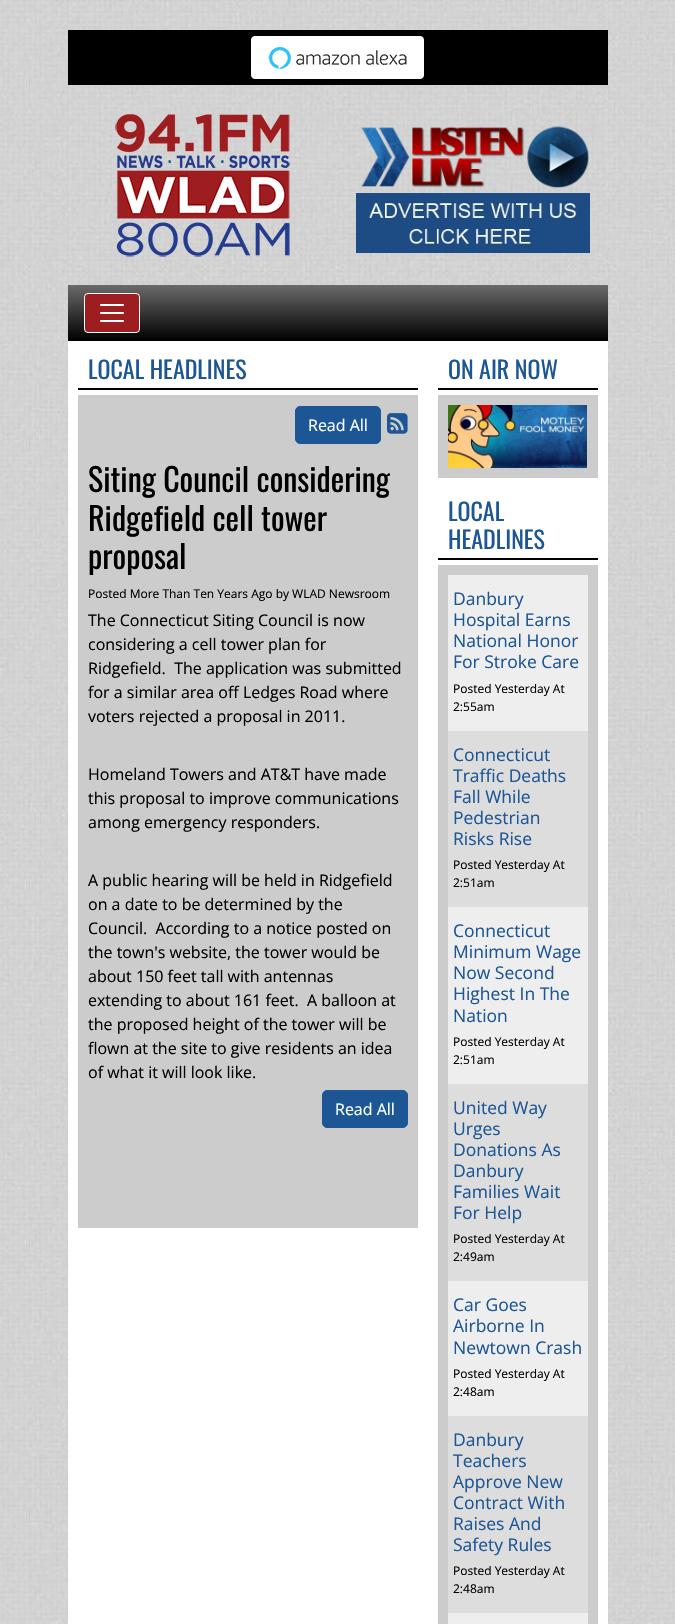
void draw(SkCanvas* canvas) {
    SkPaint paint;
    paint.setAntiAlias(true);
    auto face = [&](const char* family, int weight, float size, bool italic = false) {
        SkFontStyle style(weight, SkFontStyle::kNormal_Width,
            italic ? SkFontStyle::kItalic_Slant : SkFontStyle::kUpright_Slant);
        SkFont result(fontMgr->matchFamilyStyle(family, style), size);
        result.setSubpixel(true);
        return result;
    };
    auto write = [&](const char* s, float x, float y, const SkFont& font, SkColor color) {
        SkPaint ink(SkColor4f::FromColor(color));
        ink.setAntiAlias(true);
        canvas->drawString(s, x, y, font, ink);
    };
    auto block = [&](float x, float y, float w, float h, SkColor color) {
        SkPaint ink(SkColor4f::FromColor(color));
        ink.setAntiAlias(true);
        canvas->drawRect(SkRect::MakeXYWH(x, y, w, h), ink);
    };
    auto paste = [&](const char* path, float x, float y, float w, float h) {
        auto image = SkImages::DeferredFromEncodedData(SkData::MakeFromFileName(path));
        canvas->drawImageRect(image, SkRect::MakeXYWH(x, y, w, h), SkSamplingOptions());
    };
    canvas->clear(SK_ColorWHITE);
    paste("pic1.png", 0, 0, 675, 1624);
    block(68, 30, 540, 55, SK_ColorBLACK);
    paste("pic2.png", 251, 36, 173, 43);
    paste("pic3.png", 115, 114, 175, 143);
    paste("pic4.png", 361, 126, 228, 62);
    paste("pic5.png", 356, 193, 234, 60);
    {
        const SkColor colors[] = {SkColorSetRGB(106, 106, 106), SK_ColorBLACK};
        const float stops[] = {0, 1};
        const SkPoint ends[] = {{338, 285}, {338, 341}};
        paint.setShader(SkGradientShader::MakeLinear(ends, colors, stops, 2, SkTileMode::kClamp));
        paint.setAlpha(255);
    }
    canvas->drawRect(SkRect::MakeXYWH(68, 285, 540, 56), paint);
    paint.setShader(nullptr);
    paint.setColor(SkColorSetRGB(158, 29, 33));
    canvas->drawRoundRect(SkRect::MakeXYWH(84.5f, 293.5f, 55, 39), 3.5f, 3.5f, paint);
    paint.setStyle(SkPaint::kStroke_Style);
    paint.setStrokeWidth(1);
    paint.setColor(SK_ColorWHITE);
    canvas->drawRoundRect(SkRect::MakeXYWH(84.5f, 293.5f, 55, 39), 3.5f, 3.5f, paint);
    paste("pic6.png", 100, 304, 24, 18);
    block(68, 341, 540, 1283, SK_ColorWHITE);
    block(78, 388, 340, 2, SK_ColorBLACK);
    auto kFont1 = face("Oswald", 400, 24);
    write("LOCAL HEADLINES", 88, 379, kFont1, SkColorSetRGB(28, 86, 149));
    block(78, 395, 340, 833, SkColorSetRGB(204, 204, 204));
    paint.setStyle(SkPaint::kFill_Style);
    paint.setColor(SkColorSetRGB(28, 86, 149));
    canvas->drawRoundRect(SkRect::MakeXYWH(295.5f, 406.5f, 85, 37), 4.5f, 4.5f, paint);
    paint.setStyle(SkPaint::kStroke_Style);
    canvas->drawRoundRect(SkRect::MakeXYWH(295.5f, 406.5f, 85, 37), 4.5f, 4.5f, paint);
    auto kFont2 = face("Open Sans", 400, 16);
    write("Read All", 308, 431, kFont2, SK_ColorWHITE);
    paste("pic7.png", 387, 413, 21, 21);
    auto kFont3 = face("Oswald", 400, 32);
    write("Siting Council considering", 88, 492, kFont3, SK_ColorBLACK);
    write("Ridgefield cell tower", 88, 531, kFont3, SK_ColorBLACK);
    write("proposal", 88, 569, kFont3, SK_ColorBLACK);
    auto kFont4 = face("Open Sans", 400, 12);
    write("Posted More Than Ten Years Ago by WLAD Newsroom", 88, 598, kFont4, SK_ColorBLACK);
    write("The Connecticut Siting Council is now", 88, 626, kFont2, SK_ColorBLACK);
    write("considering a cell tower plan for", 88, 650, kFont2, SK_ColorBLACK);
    write("Ridgefield.  The application was submitted", 88, 674, kFont2, SK_ColorBLACK);
    write("for a similar area off Ledges Road where", 88, 698, kFont2, SK_ColorBLACK);
    write("voters rejected a proposal in 2011.", 88, 722, kFont2, SK_ColorBLACK);
    write("Homeland Towers and AT&T have made", 88, 780, kFont2, SK_ColorBLACK);
    write("this proposal to improve communications", 88, 804, kFont2, SK_ColorBLACK);
    write("among emergency responders.", 88, 828, kFont2, SK_ColorBLACK);
    write("A public hearing will be held in Ridgefield", 88, 886, kFont2, SK_ColorBLACK);
    write("on a date to be determined by the", 88, 910, kFont2, SK_ColorBLACK);
    write("Council.  According to a notice posted on", 88, 934, kFont2, SK_ColorBLACK);
    write("the town's website, the tower would be", 88, 958, kFont2, SK_ColorBLACK);
    write("about 150 feet tall with antennas", 88, 982, kFont2, SK_ColorBLACK);
    write("extending to about 161 feet.  A balloon at", 88, 1006, kFont2, SK_ColorBLACK);
    write("the proposed height of the tower will be", 88, 1030, kFont2, SK_ColorBLACK);
    write("flown at the site to give residents an idea", 88, 1054, kFont2, SK_ColorBLACK);
    write("of what it will look like.", 88, 1078, kFont2, SK_ColorBLACK);
    paint.setStyle(SkPaint::kFill_Style);
    canvas->drawRoundRect(SkRect::MakeXYWH(322.5f, 1090.5f, 85, 37), 4.5f, 4.5f, paint);
    paint.setStyle(SkPaint::kStroke_Style);
    canvas->drawRoundRect(SkRect::MakeXYWH(322.5f, 1090.5f, 85, 37), 4.5f, 4.5f, paint);
    write("Read All", 335, 1115, kFont2, SK_ColorWHITE);
    block(438, 388, 160, 2, SK_ColorBLACK);
    write("ON AIR NOW", 448, 379, kFont1, SkColorSetRGB(28, 86, 149));
    block(438, 395, 160, 83, SkColorSetRGB(204, 204, 204));
    paste("pic8.png", 448, 405, 139, 63);
    block(438, 558, 160, 2, SK_ColorBLACK);
    write("LOCAL", 448, 521, kFont1, SkColorSetRGB(28, 86, 149));
    write("HEADLINES", 448, 549, kFont1, SkColorSetRGB(28, 86, 149));
    block(438, 565, 160, 1059, SkColorSetRGB(204, 204, 204));
    block(448, 575, 140, 156, SkColorSetRGB(238, 238, 238));
    auto kFont5 = face("Open Sans", 400, 17.5f);
    write("Danbury", 453, 605, kFont5, SkColorSetRGB(28, 86, 149));
    write("Hospital Earns", 453, 626, kFont5, SkColorSetRGB(28, 86, 149));
    write("National Honor", 453, 647, kFont5, SkColorSetRGB(28, 86, 149));
    write("For Stroke Care", 453, 668, kFont5, SkColorSetRGB(28, 86, 149));
    write("Posted Yesterday At", 453, 693, kFont4, SK_ColorBLACK);
    write("2:55am", 453, 711, kFont4, SK_ColorBLACK);
    block(448, 731, 140, 176, SkColorSetRGB(221, 221, 221));
    write("Connecticut", 453, 761, kFont5, SkColorSetRGB(28, 86, 149));
    write("Traffic Deaths", 453, 782, kFont5, SkColorSetRGB(28, 86, 149));
    write("Fall While", 453, 803, kFont5, SkColorSetRGB(28, 86, 149));
    write("Pedestrian", 453, 824, kFont5, SkColorSetRGB(28, 86, 149));
    write("Risks Rise", 453, 845, kFont5, SkColorSetRGB(28, 86, 149));
    write("Posted Yesterday At", 453, 869, kFont4, SK_ColorBLACK);
    write("2:51am", 453, 887, kFont4, SK_ColorBLACK);
    block(448, 907, 140, 177, SkColorSetRGB(238, 238, 238));
    write("Connecticut", 453, 937, kFont5, SkColorSetRGB(28, 86, 149));
    write("Minimum Wage", 453, 958, kFont5, SkColorSetRGB(28, 86, 149));
    write("Now Second", 453, 979, kFont5, SkColorSetRGB(28, 86, 149));
    write("Highest In The", 453, 1000, kFont5, SkColorSetRGB(28, 86, 149));
    write("Nation", 453, 1022, kFont5, SkColorSetRGB(28, 86, 149));
    write("Posted Yesterday At", 453, 1046, kFont4, SK_ColorBLACK);
    write("2:51am", 453, 1064, kFont4, SK_ColorBLACK);
    block(448, 1084, 140, 197, SkColorSetRGB(221, 221, 221));
    write("United Way", 453, 1114, kFont5, SkColorSetRGB(28, 86, 149));
    write("Urges", 453, 1135, kFont5, SkColorSetRGB(28, 86, 149));
    write("Donations As", 453, 1156, kFont5, SkColorSetRGB(28, 86, 149));
    write("Danbury", 453, 1177, kFont5, SkColorSetRGB(28, 86, 149));
    write("Families Wait", 453, 1198, kFont5, SkColorSetRGB(28, 86, 149));
    write("For Help", 453, 1219, kFont5, SkColorSetRGB(28, 86, 149));
    write("Posted Yesterday At", 453, 1243, kFont4, SK_ColorBLACK);
    write("2:49am", 453, 1261, kFont4, SK_ColorBLACK);
    block(448, 1281, 140, 135, SkColorSetRGB(238, 238, 238));
    write("Car Goes", 453, 1311, kFont5, SkColorSetRGB(28, 86, 149));
    write("Airborne In", 453, 1332, kFont5, SkColorSetRGB(28, 86, 149));
    write("Newtown Crash", 453, 1354, kFont5, SkColorSetRGB(28, 86, 149));
    write("Posted Yesterday At", 453, 1378, kFont4, SK_ColorBLACK);
    write("2:48am", 453, 1396, kFont4, SK_ColorBLACK);
    block(448, 1416, 140, 197, SkColorSetRGB(221, 221, 221));
    write("Danbury", 453, 1446, kFont5, SkColorSetRGB(28, 86, 149));
    write("Teachers", 453, 1467, kFont5, SkColorSetRGB(28, 86, 149));
    write("Approve New", 453, 1488, kFont5, SkColorSetRGB(28, 86, 149));
    write("Contract With", 453, 1509, kFont5, SkColorSetRGB(28, 86, 149));
    write("Raises And", 453, 1530, kFont5, SkColorSetRGB(28, 86, 149));
    write("Safety Rules", 453, 1551, kFont5, SkColorSetRGB(28, 86, 149));
    write("Posted Yesterday At", 453, 1575, kFont4, SK_ColorBLACK);
    write("2:48am", 453, 1593, kFont4, SK_ColorBLACK);
    block(448, 1613, 140, 11, SkColorSetRGB(238, 238, 238));
}
